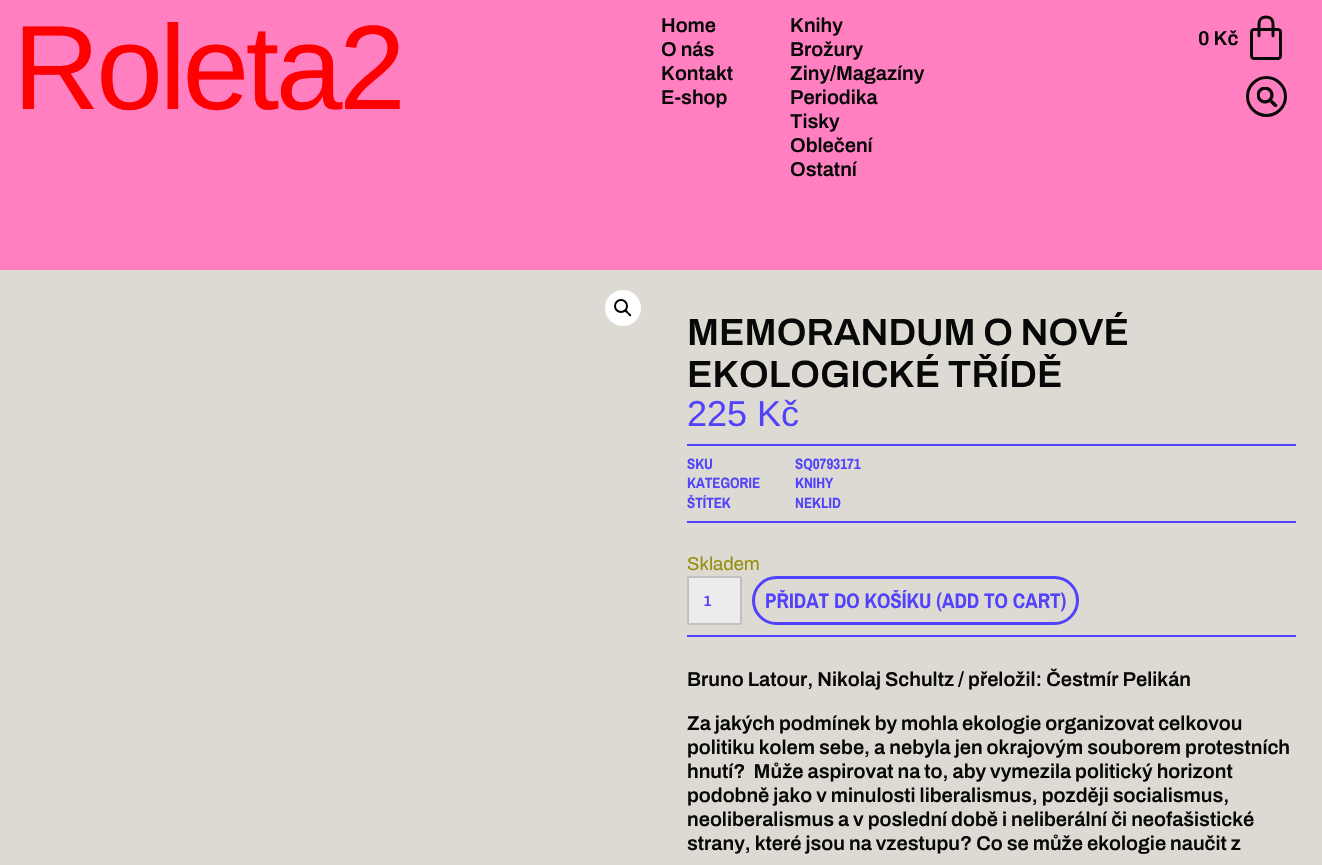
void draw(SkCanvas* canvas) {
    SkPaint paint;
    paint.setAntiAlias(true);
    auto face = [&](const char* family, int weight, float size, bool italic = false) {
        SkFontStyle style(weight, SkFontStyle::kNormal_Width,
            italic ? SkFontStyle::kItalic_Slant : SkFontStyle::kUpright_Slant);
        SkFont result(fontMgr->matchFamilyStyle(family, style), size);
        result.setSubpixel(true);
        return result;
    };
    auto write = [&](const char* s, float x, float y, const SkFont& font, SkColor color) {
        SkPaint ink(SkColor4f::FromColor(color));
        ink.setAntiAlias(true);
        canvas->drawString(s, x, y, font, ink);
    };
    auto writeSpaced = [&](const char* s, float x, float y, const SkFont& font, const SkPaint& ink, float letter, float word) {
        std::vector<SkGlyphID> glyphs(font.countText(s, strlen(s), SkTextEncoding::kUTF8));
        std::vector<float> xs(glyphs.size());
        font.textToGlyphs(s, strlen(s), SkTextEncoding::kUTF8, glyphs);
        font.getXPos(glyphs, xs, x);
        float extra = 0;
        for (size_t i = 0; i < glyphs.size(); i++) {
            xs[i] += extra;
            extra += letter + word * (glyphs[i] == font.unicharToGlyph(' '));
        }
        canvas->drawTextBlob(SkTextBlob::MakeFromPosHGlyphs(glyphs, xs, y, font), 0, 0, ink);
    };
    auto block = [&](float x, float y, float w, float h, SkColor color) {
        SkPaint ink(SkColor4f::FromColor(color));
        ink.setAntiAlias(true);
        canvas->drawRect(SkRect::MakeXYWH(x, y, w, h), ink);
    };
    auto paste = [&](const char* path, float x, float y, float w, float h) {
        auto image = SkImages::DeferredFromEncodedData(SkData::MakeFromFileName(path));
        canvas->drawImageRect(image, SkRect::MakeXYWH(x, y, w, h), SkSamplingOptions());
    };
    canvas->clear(SkColorSetRGB(221, 218, 211));
    block(0, 0, 1322, 270, SkColorSetRGB(255, 127, 192));
    auto kFont1 = face("Liberation Sans", 400, 120);
    paint.setColor(SkColorSetRGB(255, 0, 0));
    writeSpaced("Roleta2", 13, 109, kFont1, paint, -3.5f, 0);
    auto kFont2 = face("Archivo", 600, 20);
    write("Home", 661, 32, kFont2, SkColorSetRGB(8, 8, 8));
    write("O nás", 661, 56, kFont2, SkColorSetRGB(8, 8, 8));
    write("Kontakt", 661, 80, kFont2, SkColorSetRGB(8, 8, 8));
    write("E-shop", 661, 104, kFont2, SkColorSetRGB(8, 8, 8));
    write("Knihy", 790, 32, kFont2, SkColorSetRGB(8, 8, 8));
    write("Brožury", 790, 56, kFont2, SkColorSetRGB(8, 8, 8));
    write("Ziny/Magazíny", 790, 80, kFont2, SkColorSetRGB(8, 8, 8));
    write("Periodika", 790, 104, kFont2, SkColorSetRGB(8, 8, 8));
    write("Tisky", 790, 128, kFont2, SkColorSetRGB(8, 8, 8));
    write("Oblečení", 790, 152, kFont2, SkColorSetRGB(8, 8, 8));
    write("Ostatní", 790, 176, kFont2, SkColorSetRGB(8, 8, 8));
    write("0 Kč", 1198, 45, kFont2, SkColorSetRGB(8, 8, 8));
    paste("pic1.png", 1250, 15, 32, 45);
    paint.setStyle(SkPaint::kStroke_Style);
    paint.setStrokeWidth(3);
    paint.setColor(SkColorSetRGB(8, 8, 8));
    canvas->drawCircle(1266.5f, 96.5f, 19, paint);
    paste("pic2.png", 1257, 87, 21, 20);
    paint.setStyle(SkPaint::kFill_Style);
    paint.setColor(SK_ColorWHITE);
    canvas->drawCircle(623, 308, 18, paint);
    paint.setStyle(SkPaint::kStroke_Style);
    paint.setStrokeWidth(2);
    paint.setColor(SK_ColorBLACK);
    canvas->drawCircle(621, 306, 6, paint);
    paint.setStyle(SkPaint::kFill_Style);
    canvas->drawPath(SkPathBuilder().moveTo(625, 310).cubicTo(626.5f, 309, 628, 311.5f, 628.5f, 312.5f).cubicTo(629.5f, 313, 632, 314.5f, 631, 316).cubicTo(629.5f, 317, 628, 314.5f, 627.5f, 313.5f).cubicTo(626.5f, 313, 624, 311.5f, 625, 310).close().detach(), paint);
    auto kFont3 = face("Archivo", 600, 38);
    write("MEMORANDUM O NOVÉ", 687, 345, kFont3, SkColorSetRGB(8, 8, 8));
    write("EKOLOGICKÉ TŘÍDĚ", 687, 387, kFont3, SkColorSetRGB(8, 8, 8));
    auto kFont4 = face("Liberation Sans", 400, 36);
    write("225 Kč", 687, 426, kFont4, SkColorSetRGB(81, 66, 252));
    block(687, 444, 609, 2, SkColorSetRGB(81, 66, 252));
    auto kFont5 = face("Archivo Narrow", 700, 15);
    write("SKU", 687, 469, kFont5, SkColorSetRGB(81, 66, 252));
    write("SQ0793171", 795, 469, kFont5, SkColorSetRGB(81, 66, 252));
    write("KATEGORIE", 687, 488, kFont5, SkColorSetRGB(81, 66, 252));
    write("KNIHY", 795, 488, kFont5, SkColorSetRGB(81, 66, 252));
    write("ŠTÍTEK", 687, 508, kFont5, SkColorSetRGB(81, 66, 252));
    write("NEKLID", 795, 508, kFont5, SkColorSetRGB(81, 66, 252));
    block(687, 521, 609, 2, SkColorSetRGB(81, 66, 252));
    auto kFont6 = face("Archivo", 400, 18.5f);
    write("Skladem", 687, 570, kFont6, SkColorSetRGB(149, 142, 9));
    paint.setColor(SkColorSetRGB(236, 236, 236));
    canvas->drawRoundRect(SkRect::MakeXYWH(688, 577, 53, 47), 1, 1, paint);
    paint.setStyle(SkPaint::kStroke_Style);
    paint.setColor(SkColorSetRGB(192, 192, 192));
    canvas->drawRoundRect(SkRect::MakeXYWH(688, 577, 53, 47), 1, 1, paint);
    write("1", 704, 606, kFont5, SkColorSetRGB(81, 66, 252));
    paint.setStrokeWidth(3);
    paint.setColor(SkColorSetRGB(81, 66, 252));
    canvas->drawRoundRect(SkRect::MakeXYWH(753.5f, 577.5f, 324, 46), 23, 23, paint);
    auto kFont7 = face("Archivo Narrow", 700, 21);
    write("PŘIDAT DO KOŠÍKU (ADD TO CART)", 765, 608, kFont7, SkColorSetRGB(81, 66, 252));
    block(687, 635, 609, 2, SkColorSetRGB(81, 66, 252));
    write("Bruno Latour, Nikolaj Schultz / přeložil: Čestmír Pelikán", 687, 686, kFont2, SkColorSetRGB(8, 8, 8));
    write("Za jakých podmínek by mohla ekologie organizovat celkovou", 687, 730, kFont2, SkColorSetRGB(8, 8, 8));
    write("politiku kolem sebe, a nebyla jen okrajovým souborem protestních", 687, 754, kFont2, SkColorSetRGB(8, 8, 8));
    write("hnutí?  Může aspirovat na to, aby vymezila politický horizont", 687, 778, kFont2, SkColorSetRGB(8, 8, 8));
    write("podobně jako v minulosti liberalismus, později socialismus,", 687, 802, kFont2, SkColorSetRGB(8, 8, 8));
    write("neoliberalismus a v poslední době i neliberální či neofašistické", 687, 826, kFont2, SkColorSetRGB(8, 8, 8));
    write("strany, které jsou na vzestupu? Co se může ekologie naučit z", 687, 850, kFont2, SkColorSetRGB(8, 8, 8));
}
